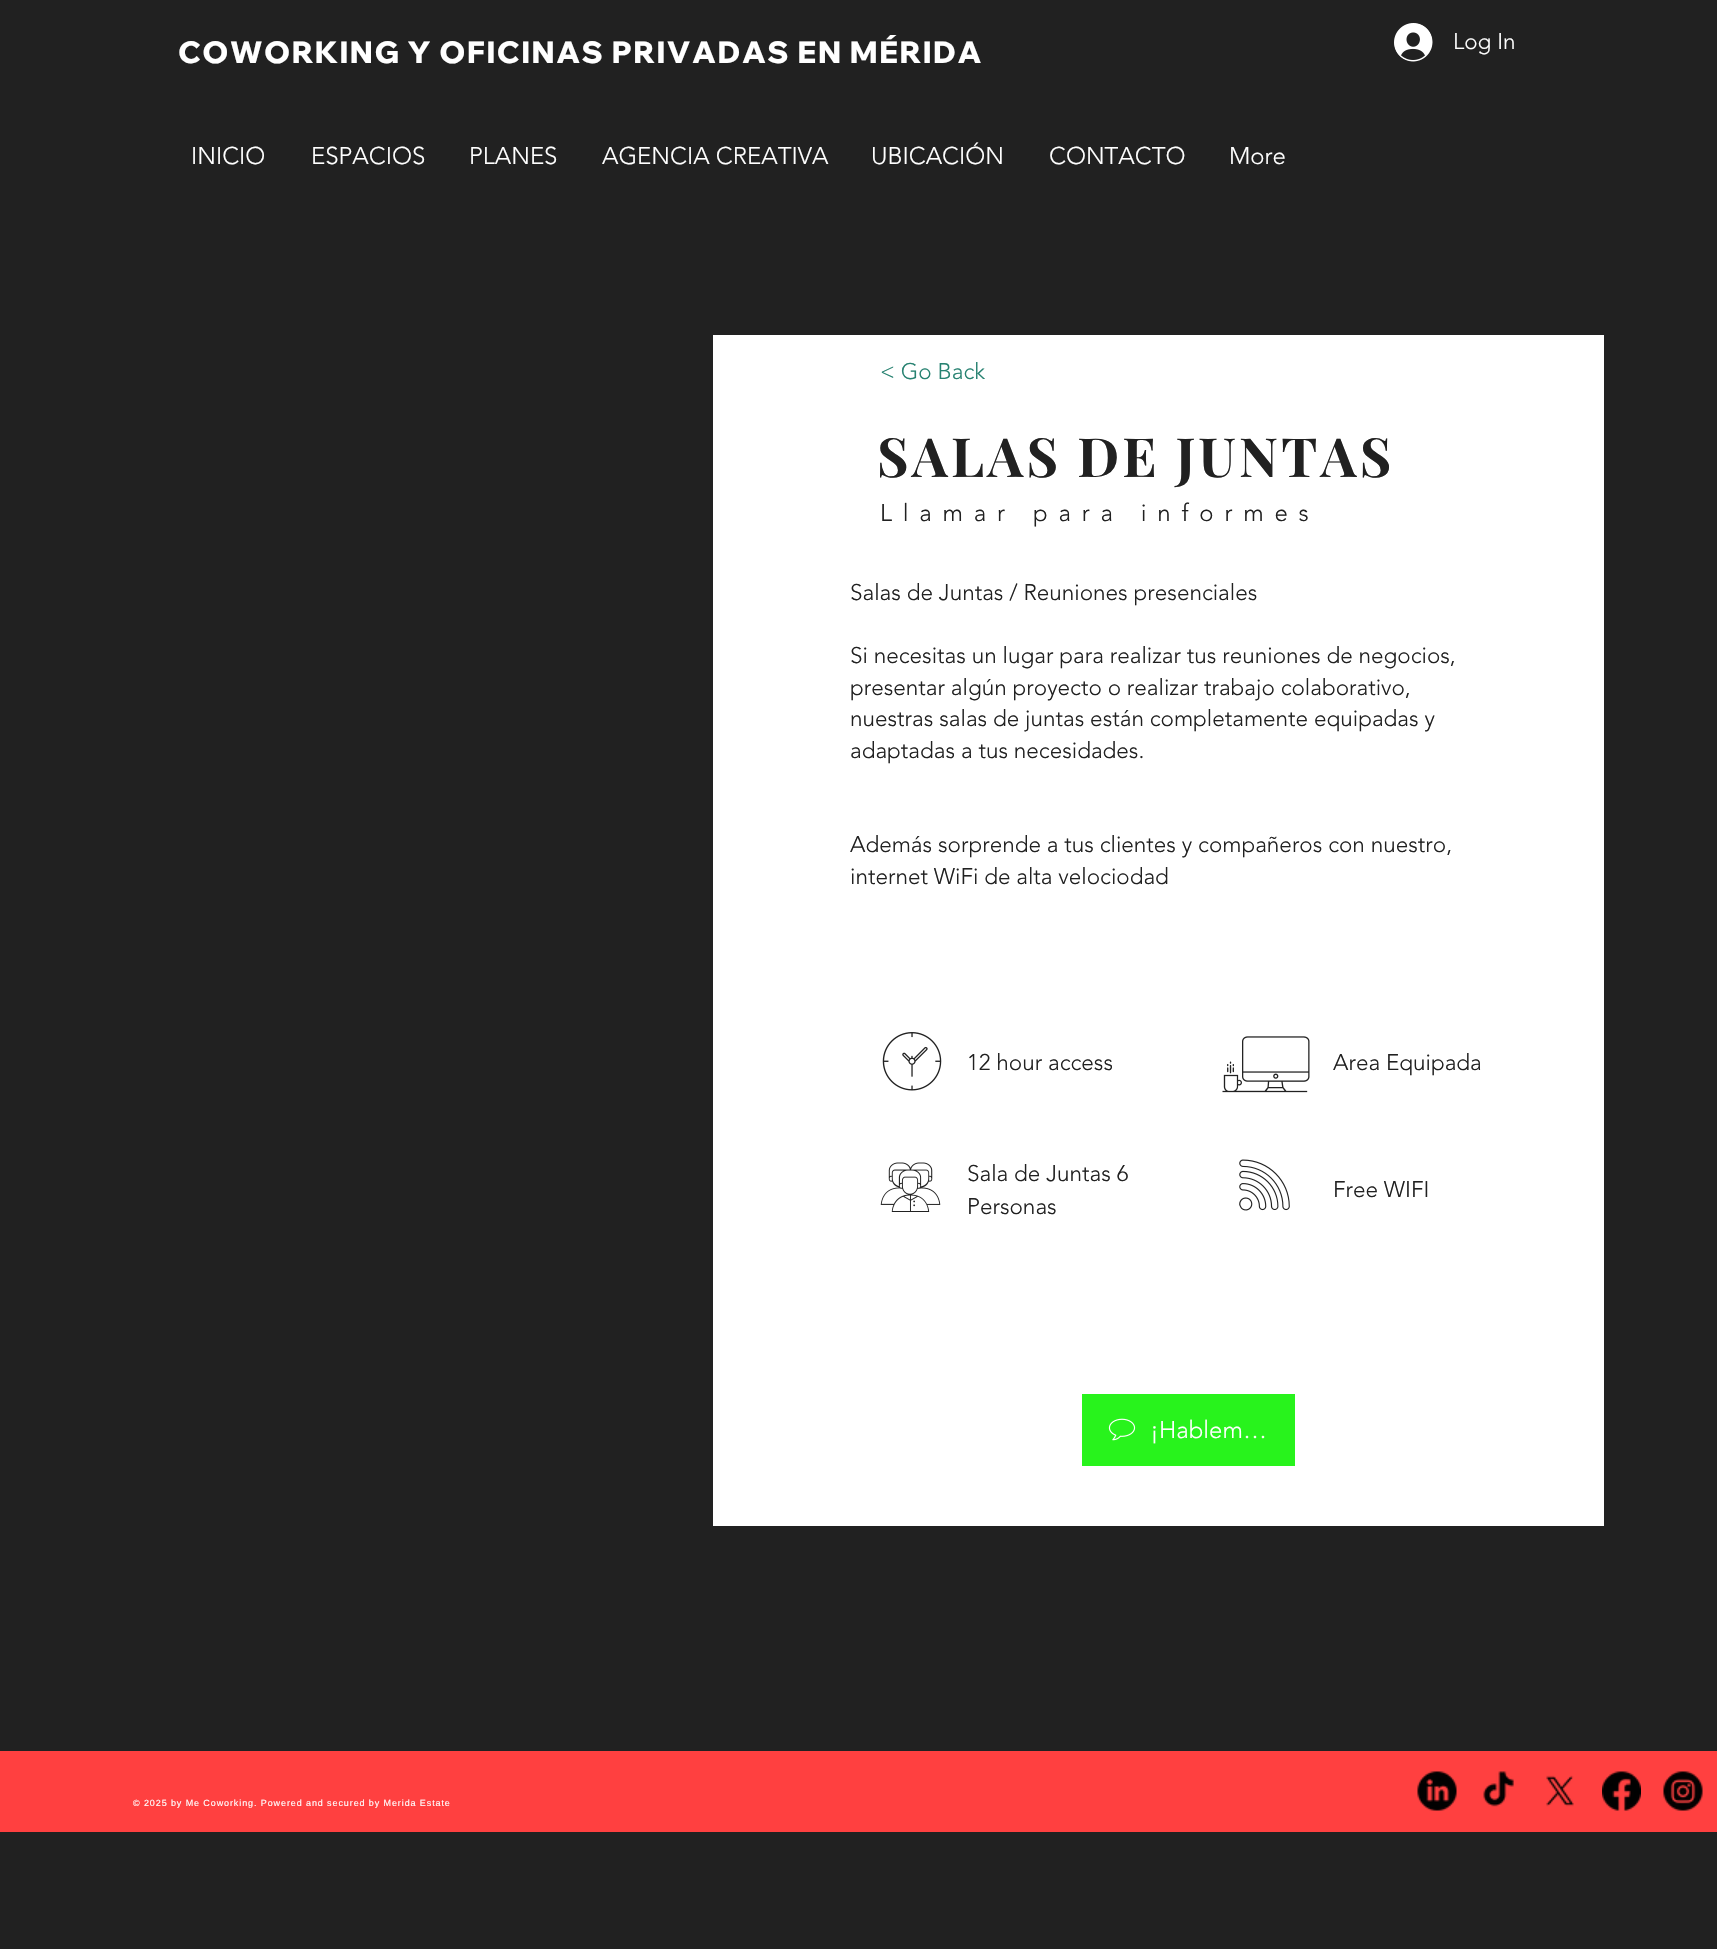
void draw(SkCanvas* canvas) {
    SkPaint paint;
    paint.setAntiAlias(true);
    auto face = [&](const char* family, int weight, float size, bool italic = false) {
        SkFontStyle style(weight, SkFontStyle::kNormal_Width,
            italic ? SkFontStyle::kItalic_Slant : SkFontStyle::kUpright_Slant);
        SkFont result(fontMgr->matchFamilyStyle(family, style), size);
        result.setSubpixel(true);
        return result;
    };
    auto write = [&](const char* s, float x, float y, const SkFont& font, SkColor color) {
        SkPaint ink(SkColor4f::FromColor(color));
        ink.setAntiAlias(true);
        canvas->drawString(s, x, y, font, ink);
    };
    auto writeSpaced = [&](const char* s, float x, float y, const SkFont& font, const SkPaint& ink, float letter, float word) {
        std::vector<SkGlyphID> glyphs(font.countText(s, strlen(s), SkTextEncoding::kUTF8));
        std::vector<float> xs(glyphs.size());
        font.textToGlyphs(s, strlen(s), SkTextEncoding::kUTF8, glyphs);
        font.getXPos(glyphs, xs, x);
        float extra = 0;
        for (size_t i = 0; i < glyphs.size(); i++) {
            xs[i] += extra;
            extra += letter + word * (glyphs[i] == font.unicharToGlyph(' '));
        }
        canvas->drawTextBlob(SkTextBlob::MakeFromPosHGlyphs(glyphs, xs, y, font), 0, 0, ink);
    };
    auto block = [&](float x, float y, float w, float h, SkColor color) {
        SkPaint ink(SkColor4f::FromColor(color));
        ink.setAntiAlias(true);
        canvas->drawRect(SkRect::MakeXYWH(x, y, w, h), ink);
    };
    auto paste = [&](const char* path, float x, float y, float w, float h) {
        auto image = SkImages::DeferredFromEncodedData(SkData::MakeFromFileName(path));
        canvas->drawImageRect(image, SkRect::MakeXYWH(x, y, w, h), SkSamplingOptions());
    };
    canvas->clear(SkColorSetRGB(33, 33, 33));
    auto kFont1 = face("Wix Madefor Display", 800, 30);
    paint.setColor(SK_ColorWHITE);
    writeSpaced("COWORKING Y OFICINAS PRIVADAS EN MÉRIDA", 178, 63, kFont1, paint, 1.5f, 0);
    paste("pic1.png", 1394, 23, 39, 39);
    auto kFont2 = face("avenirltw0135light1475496", 300, 22.5f);
    write("Log In", 1453, 49, kFont2, SK_ColorWHITE);
    auto kFont3 = face("avenirltw0135light1475496", 300, 24);
    write("INICIO", 191, 164, kFont3, SK_ColorWHITE);
    write("ESPACIOS", 311, 164, kFont3, SK_ColorWHITE);
    write("PLANES", 469, 164, kFont3, SK_ColorWHITE);
    write("AGENCIA CREATIVA", 602, 164, kFont3, SK_ColorWHITE);
    write("UBICACIÓN", 871, 164, kFont3, SK_ColorWHITE);
    write("CONTACTO", 1049, 164, kFont3, SK_ColorWHITE);
    write("More", 1229, 164, kFont3, SK_ColorWHITE);
    block(713, 335, 891, 1191, SK_ColorWHITE);
    write("< Go Back", 880, 379, kFont2, SkColorSetRGB(39, 130, 113));
    auto kFont4 = face("Playfair Display", 700, 54);
    paint.setColor(SkColorSetRGB(33, 33, 33));
    writeSpaced("SALAS DE JUNTAS", 877, 477, kFont4, paint, 3.25f, 0);
    writeSpaced("Llamar para informes", 880, 521, kFont3, paint, 10.8f, 0);
    write("Salas de Juntas / Reuniones presenciales", 850, 600, kFont2, SkColorSetRGB(33, 33, 33));
    write("Si necesitas un lugar para realizar tus reuniones de negocios,", 850, 663, kFont2, SkColorSetRGB(33, 33, 33));
    write("presentar algún proyecto o realizar trabajo colaborativo,", 850, 695, kFont2, SkColorSetRGB(33, 33, 33));
    write("nuestras salas de juntas están completamente equipadas y", 850, 726, kFont2, SkColorSetRGB(33, 33, 33));
    write("adaptadas a tus necesidades.", 850, 758, kFont2, SkColorSetRGB(33, 33, 33));
    write("Además sorprende a tus clientes y compañeros con nuestro,", 850, 852, kFont2, SkColorSetRGB(33, 33, 33));
    write("internet WiFi de alta velociodad", 850, 884, kFont2, SkColorSetRGB(33, 33, 33));
    paste("pic2.png", 882, 1032, 60, 59);
    write("12 hour access", 967, 1070, kFont2, SkColorSetRGB(33, 33, 33));
    paste("pic3.png", 1222, 1036, 88, 57);
    write("Area Equipada", 1333, 1070, kFont2, SkColorSetRGB(33, 33, 33));
    paste("pic4.png", 880, 1162, 61, 50);
    write("Sala de Juntas 6", 967, 1181, kFont2, SkColorSetRGB(33, 33, 33));
    write("Personas", 967, 1214, kFont2, SkColorSetRGB(33, 33, 33));
    paste("pic5.png", 1239, 1159, 51, 52);
    write("Free WIFI", 1333, 1197, kFont2, SkColorSetRGB(33, 33, 33));
    block(1082, 1394, 213, 72, SkColorSetRGB(40, 243, 28));
    paste("pic6.png", 1108, 1418, 28, 23);
    write("¡Hablem…", 1150, 1438, kFont3, SK_ColorWHITE);
    block(0, 1751, 1717, 81, SkColorSetRGB(255, 64, 64));
    auto kFont5 = face("Liberation Sans", 400, 9);
    paint.setColor(SK_ColorWHITE);
    writeSpaced("© 2025 by Me Coworking. Powered and secured by Merida Estate", 133, 1806, kFont5, paint, 0.9f, 0);
    paste("pic7.png", 1417, 1771, 40, 40);
    paste("pic8.png", 1483, 1771, 31, 36);
    paste("pic9.png", 1546, 1775, 28, 32);
    paste("pic10.png", 1602, 1771, 39, 40);
    paste("pic11.png", 1663, 1771, 40, 40);
}
